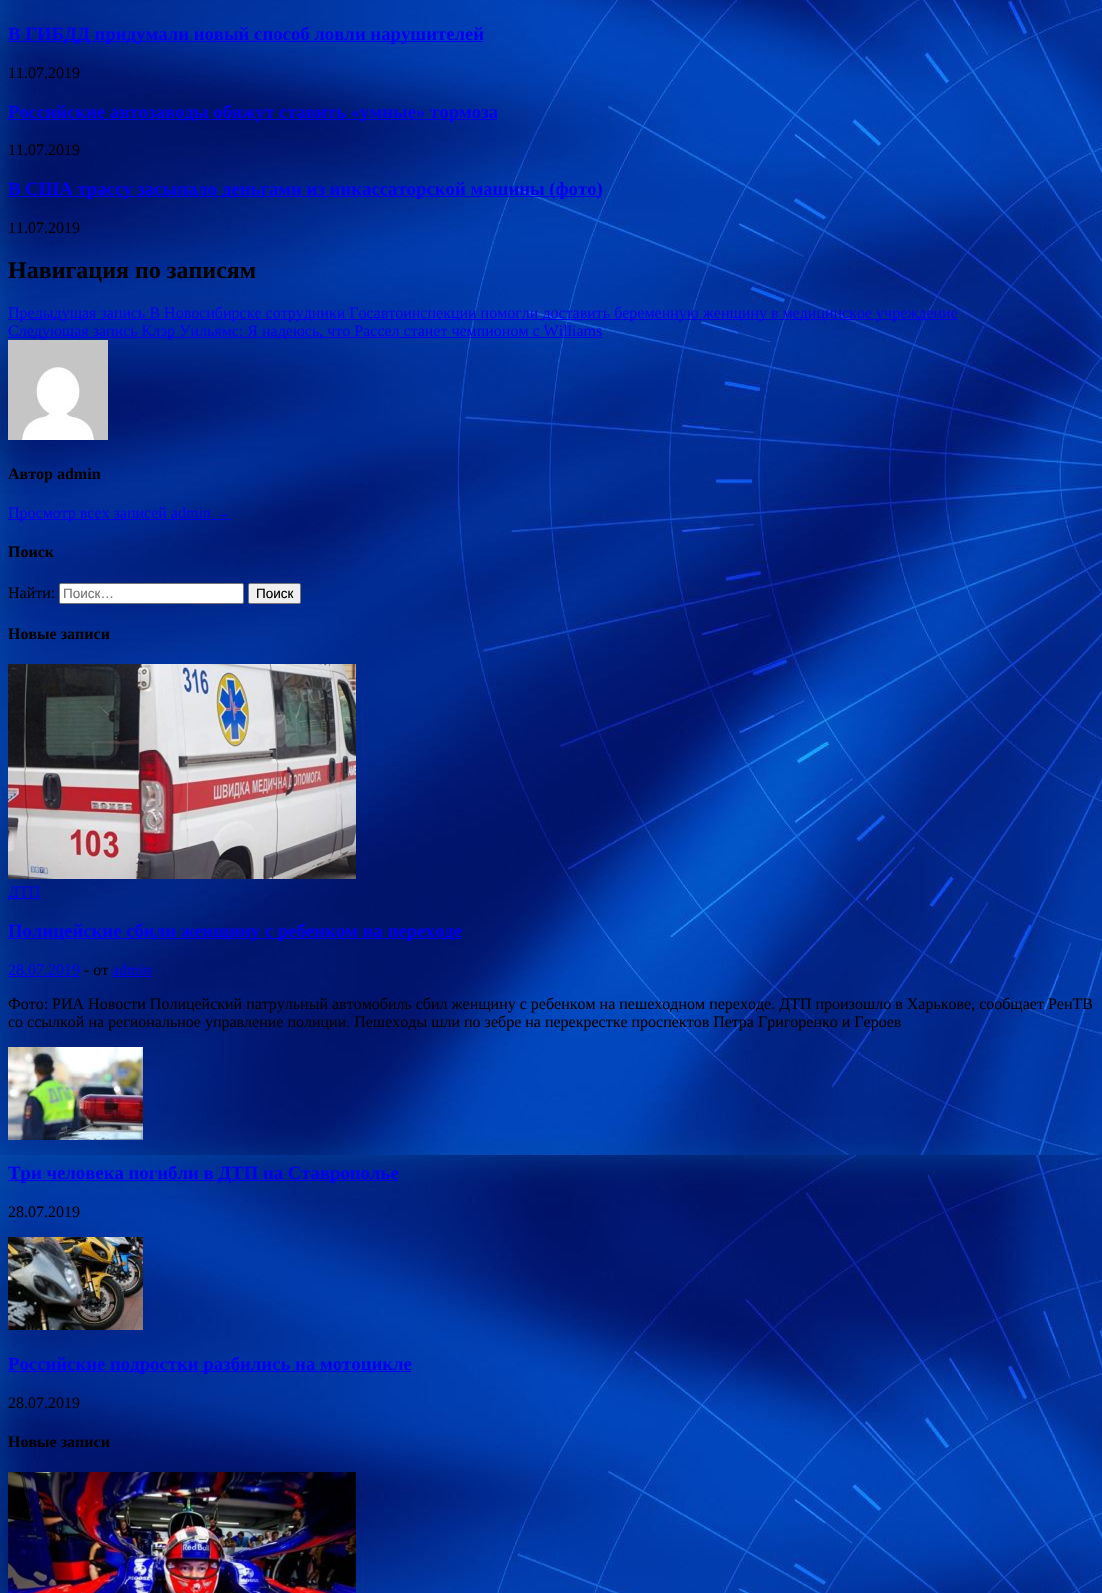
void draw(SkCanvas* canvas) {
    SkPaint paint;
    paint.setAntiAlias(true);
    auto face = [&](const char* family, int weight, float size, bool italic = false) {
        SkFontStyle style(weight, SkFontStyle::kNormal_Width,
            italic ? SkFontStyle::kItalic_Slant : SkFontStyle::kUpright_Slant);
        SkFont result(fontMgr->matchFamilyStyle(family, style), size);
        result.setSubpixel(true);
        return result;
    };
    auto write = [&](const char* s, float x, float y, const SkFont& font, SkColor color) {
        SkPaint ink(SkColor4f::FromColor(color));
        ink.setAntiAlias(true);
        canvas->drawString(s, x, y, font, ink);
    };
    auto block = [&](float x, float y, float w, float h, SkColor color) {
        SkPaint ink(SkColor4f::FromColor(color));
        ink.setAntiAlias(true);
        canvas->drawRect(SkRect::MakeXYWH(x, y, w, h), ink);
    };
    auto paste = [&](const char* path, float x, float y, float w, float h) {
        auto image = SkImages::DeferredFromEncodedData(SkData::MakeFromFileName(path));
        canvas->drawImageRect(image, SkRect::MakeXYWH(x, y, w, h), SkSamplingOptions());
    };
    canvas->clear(SK_ColorWHITE);
    paste("pic1.png", 0, 0, 1102, 1593);
    block(8, 41, 475, 1, SkColorSetRGB(0, 0, 238));
    auto kFont1 = face("Liberation Serif", 700, 18.75f);
    write("В ГИБДД придумали новый способ ловли нарушителей", 8, 40, kFont1, SkColorSetRGB(0, 0, 238));
    auto kFont2 = face("Liberation Serif", 400, 16);
    write("11.07.2019", 8, 78, kFont2, SK_ColorBLACK);
    block(8, 119, 489, 1, SkColorSetRGB(0, 0, 238));
    write("Российские автозаводы обяжут ставить «умные» тормоза", 8, 118, kFont1, SkColorSetRGB(0, 0, 238));
    write("11.07.2019", 8, 155, kFont2, SK_ColorBLACK);
    block(8, 196, 593, 1, SkColorSetRGB(0, 0, 238));
    write("В США трассу засыпало деньгами из инкассаторской машины (фото)", 8, 195, kFont1, SkColorSetRGB(0, 0, 238));
    write("11.07.2019", 8, 233, kFont2, SK_ColorBLACK);
    auto kFont3 = face("Liberation Serif", 700, 24);
    write("Навигация по записям", 8, 278, kFont3, SK_ColorBLACK);
    block(8, 319, 950, 1, SkColorSetRGB(0, 0, 238));
    write("Предыдущая запись В Новосибирске сотрудники Госавтоинспекции помогли доставить беременную женщину в медицинское учреждение", 8, 318, kFont2, SkColorSetRGB(0, 0, 238));
    block(8, 337, 594, 1, SkColorSetRGB(0, 0, 238));
    write("Следующая запись Клэр Уильямс: Я надеюсь, что Рассел станет чемпионом с Williams", 8, 336, kFont2, SkColorSetRGB(0, 0, 238));
    paste("pic2.png", 8, 340, 100, 100);
    auto kFont4 = face("Liberation Serif", 700, 16);
    write("Автор admin", 8, 479, kFont4, SK_ColorBLACK);
    block(8, 519, 223, 1, SkColorSetRGB(0, 0, 238));
    write("Просмотр всех записей admin →", 8, 518, kFont2, SkColorSetRGB(0, 0, 238));
    write("Поиск", 8, 557, kFont4, SK_ColorBLACK);
    write("Найти:", 8, 598, kFont2, SK_ColorBLACK);
    paint.setColor(SK_ColorWHITE);
    canvas->drawRoundRect(SkRect::MakeXYWH(59.5f, 583.5f, 184, 20), 1.5f, 1.5f, paint);
    paint.setStyle(SkPaint::kStroke_Style);
    paint.setStrokeWidth(1);
    paint.setColor(SkColorSetRGB(118, 118, 118));
    canvas->drawRoundRect(SkRect::MakeXYWH(59.5f, 583.5f, 184, 20), 1.5f, 1.5f, paint);
    auto kFont5 = face("Liberation Sans", 400, 13.5f);
    write("Поиск…", 63, 598, kFont5, SkColorSetRGB(117, 117, 117));
    paint.setStyle(SkPaint::kFill_Style);
    paint.setColor(SkColorSetRGB(239, 239, 239));
    canvas->drawRoundRect(SkRect::MakeXYWH(248.5f, 583.5f, 52, 20), 1.5f, 1.5f, paint);
    paint.setStyle(SkPaint::kStroke_Style);
    paint.setColor(SkColorSetRGB(118, 118, 118));
    canvas->drawRoundRect(SkRect::MakeXYWH(248.5f, 583.5f, 52, 20), 1.5f, 1.5f, paint);
    write("Поиск", 256, 598, kFont5, SK_ColorBLACK);
    write("Новые записи", 8, 639, kFont4, SK_ColorBLACK);
    paste("pic3.png", 8, 664, 348, 215);
    block(8, 898, 32, 1, SkColorSetRGB(0, 0, 238));
    write("ДТП", 8, 897, kFont2, SkColorSetRGB(0, 0, 238));
    block(8, 938, 453, 1, SkColorSetRGB(0, 0, 238));
    write("Полицейские сбили женщину с ребенком на переходе", 8, 937, kFont1, SkColorSetRGB(0, 0, 238));
    write("28.07.2019", 8, 975, kFont2, SkColorSetRGB(0, 0, 238));
    block(8, 976, 72, 1, SkColorSetRGB(0, 0, 238));
    write("- от", 84, 975, kFont2, SK_ColorBLACK);
    write("admin", 112, 975, kFont2, SkColorSetRGB(0, 0, 238));
    block(112, 976, 40, 1, SkColorSetRGB(0, 0, 238));
    write("Фото: РИА Новости Полицейский патрульный автомобиль сбил женщину с ребенком на пешеходном переходе. ДТП произошло в Харькове, сообщает РенТВ", 8, 1009, kFont2, SK_ColorBLACK);
    write("со ссылкой на региональное управление полиции. Пешеходы шли по зебре на перекрестке проспектов Петра Григоренко и Героев", 8, 1027, kFont2, SK_ColorBLACK);
    paste("pic4.png", 8, 1047, 135, 93);
    block(8, 1180, 390, 1, SkColorSetRGB(0, 0, 238));
    write("Три человека погибли в ДТП на Ставрополье", 8, 1179, kFont1, SkColorSetRGB(0, 0, 238));
    write("28.07.2019", 8, 1217, kFont2, SK_ColorBLACK);
    paste("pic5.png", 8, 1237, 135, 93);
    block(8, 1371, 403, 1, SkColorSetRGB(0, 0, 238));
    write("Российские подростки разбились на мотоцикле", 8, 1370, kFont1, SkColorSetRGB(0, 0, 238));
    write("28.07.2019", 8, 1408, kFont2, SK_ColorBLACK);
    write("Новые записи", 8, 1447, kFont4, SK_ColorBLACK);
    paste("pic6.png", 8, 1472, 348, 121);
}
